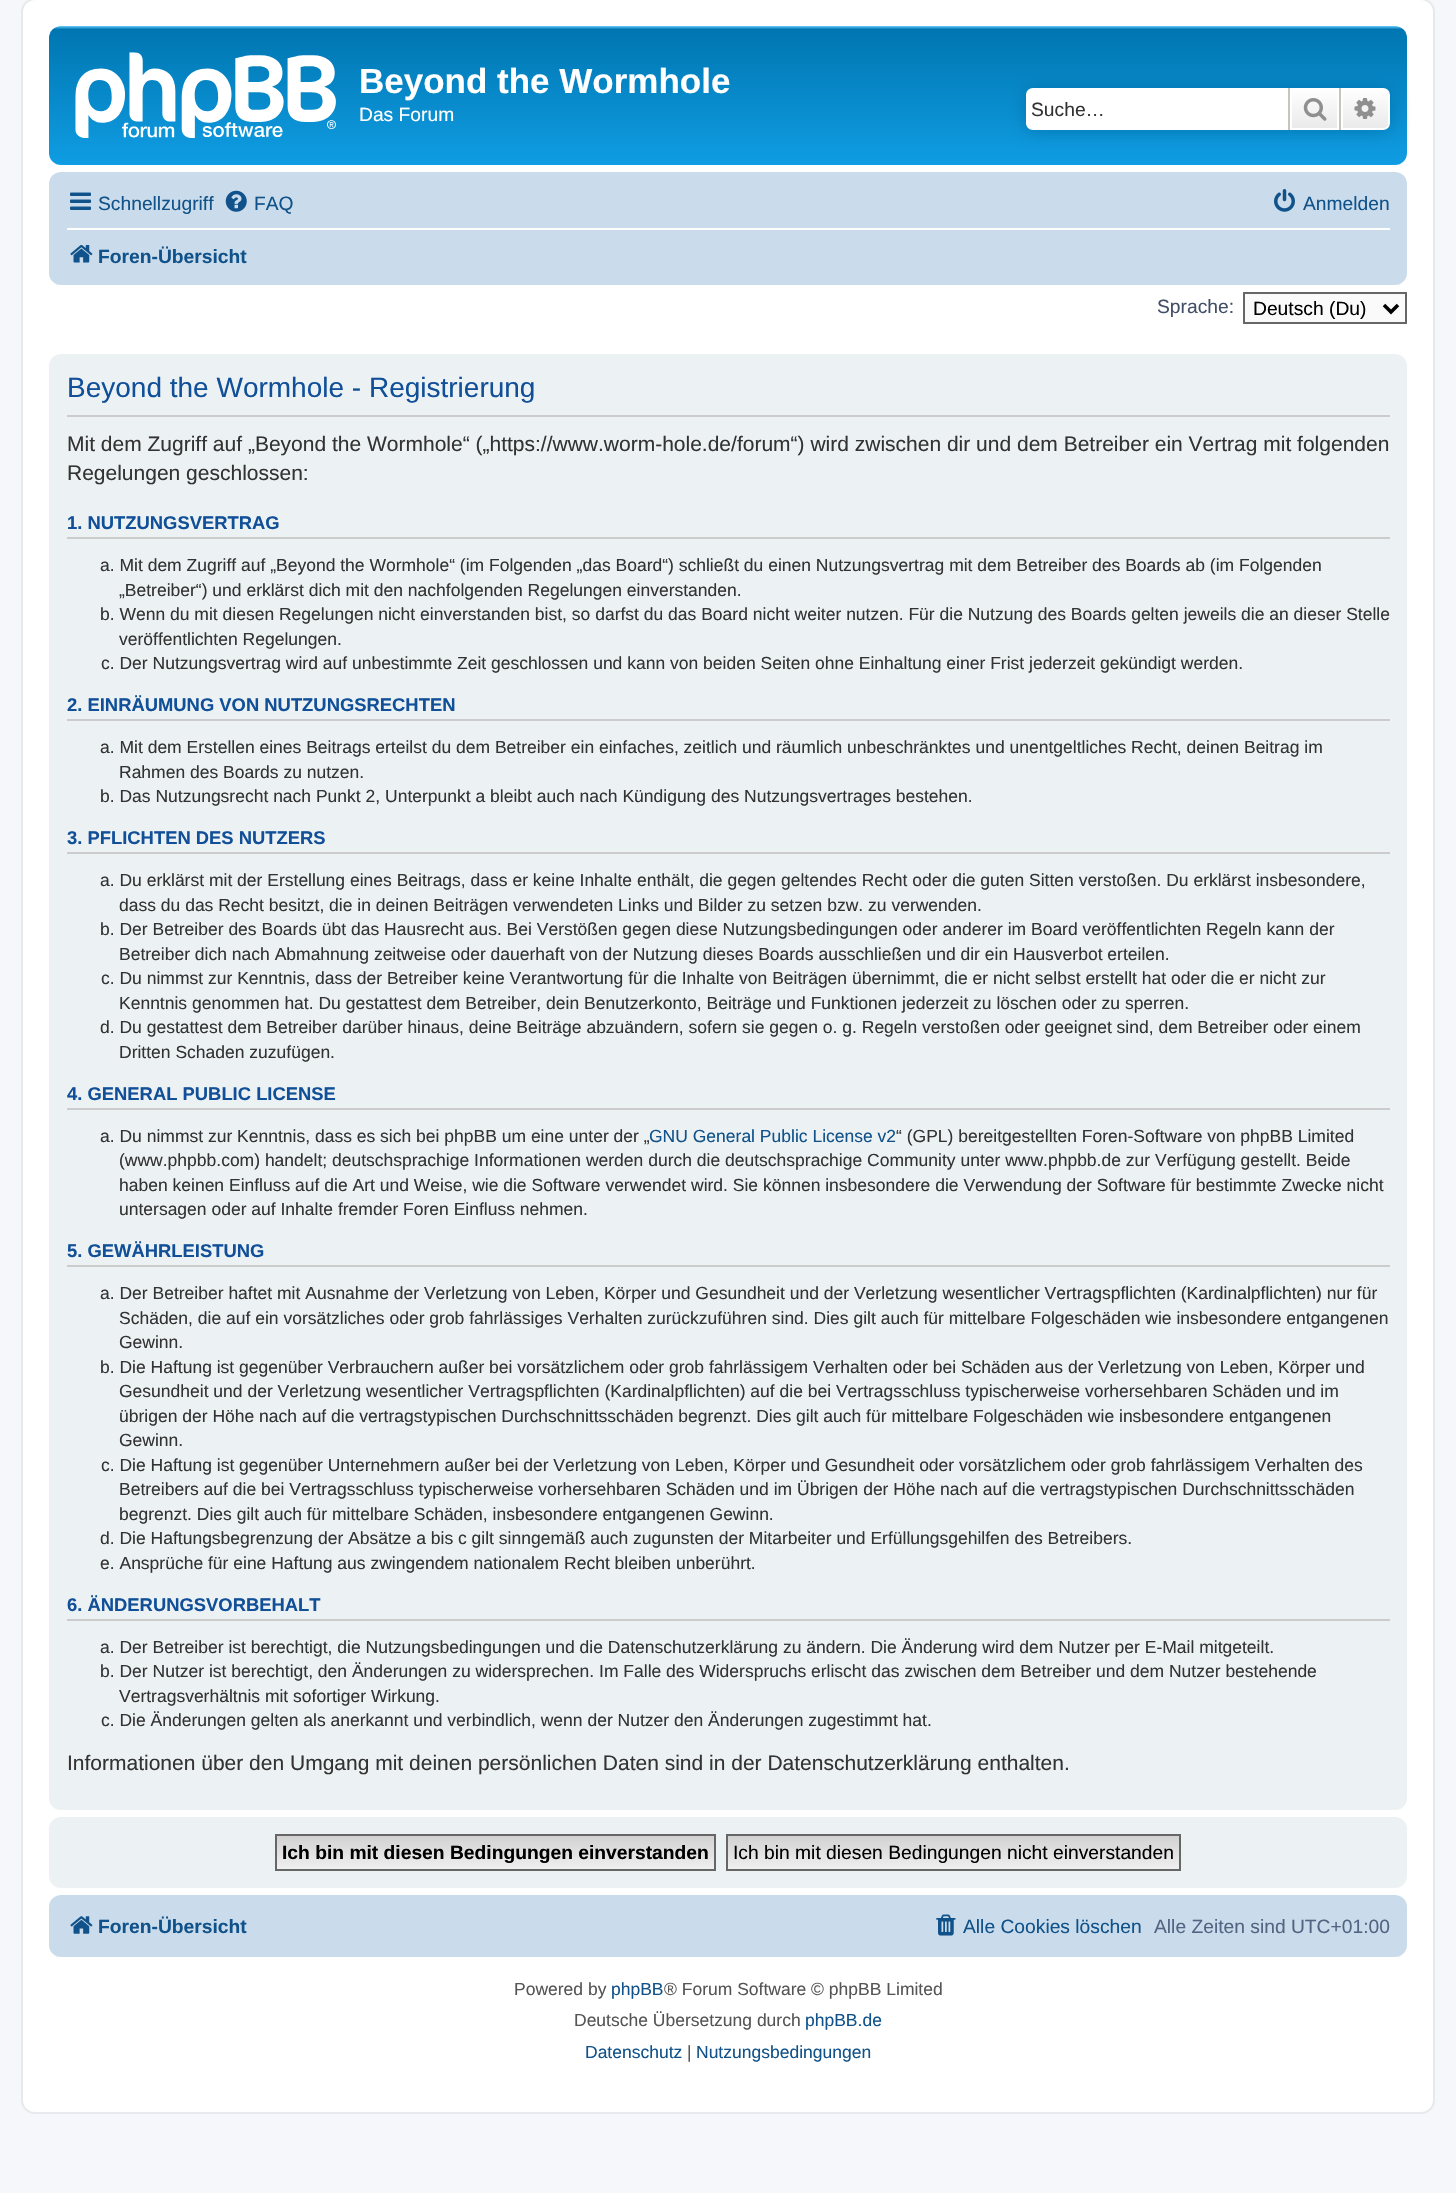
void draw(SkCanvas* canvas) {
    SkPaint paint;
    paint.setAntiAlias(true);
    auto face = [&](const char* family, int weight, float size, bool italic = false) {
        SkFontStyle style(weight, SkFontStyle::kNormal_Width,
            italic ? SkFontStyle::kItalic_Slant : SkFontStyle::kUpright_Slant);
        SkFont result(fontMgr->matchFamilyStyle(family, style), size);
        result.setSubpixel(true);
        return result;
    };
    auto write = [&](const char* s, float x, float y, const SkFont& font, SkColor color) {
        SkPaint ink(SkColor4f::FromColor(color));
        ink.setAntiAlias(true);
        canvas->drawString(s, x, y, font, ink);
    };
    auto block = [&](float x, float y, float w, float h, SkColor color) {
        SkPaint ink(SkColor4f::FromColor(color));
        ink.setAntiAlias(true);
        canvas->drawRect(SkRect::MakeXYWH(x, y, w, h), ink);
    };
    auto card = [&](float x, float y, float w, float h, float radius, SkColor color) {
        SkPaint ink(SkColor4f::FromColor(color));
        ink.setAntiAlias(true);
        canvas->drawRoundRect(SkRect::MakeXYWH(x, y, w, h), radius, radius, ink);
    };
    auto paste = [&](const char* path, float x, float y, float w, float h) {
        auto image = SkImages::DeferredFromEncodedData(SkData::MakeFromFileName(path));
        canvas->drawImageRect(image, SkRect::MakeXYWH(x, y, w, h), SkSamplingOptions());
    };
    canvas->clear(SkColorSetRGB(245, 247, 250));
    paint.setColor(SK_ColorWHITE);
    canvas->drawRoundRect(SkRect::MakeXYWH(22, -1, 1412, 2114), 13, 13, paint);
    paint.setStyle(SkPaint::kStroke_Style);
    paint.setStrokeWidth(2);
    paint.setColor(SkColorSetRGB(230, 233, 237));
    canvas->drawRoundRect(SkRect::MakeXYWH(22, -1, 1412, 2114), 13, 13, paint);
    paint.setStyle(SkPaint::kFill_Style);
    {
        const SkColor colors[] = {SkColorSetRGB(106, 206, 255), SkColorSetRGB(0, 118, 177), SkColorSetRGB(18, 163, 235)};
        const float stops[] = {0, 0.02f, 1};
        const SkPoint ends[] = {{728, 26}, {728, 187}};
        paint.setShader(SkGradientShader::MakeLinear(ends, colors, stops, 3, SkTileMode::kClamp));
        paint.setAlpha(255);
    }
    canvas->drawRoundRect(SkRect::MakeXYWH(49, 26, 1358, 139), 12, 12, paint);
    paste("pic1.png", 75, 52, 261, 86);
    auto kFont1 = face("Liberation Sans", 700, 35);
    write("Beyond the Wormhole", 359, 93, kFont1, SK_ColorWHITE);
    auto kFont2 = face("Liberation Sans", 400, 19.25f);
    write("Das Forum", 359, 121, kFont2, SK_ColorWHITE);
    paint.setShader(nullptr);
    paint.setColor(SkColorSetRGB(0, 117, 176));
    paint.setMaskFilter(SkMaskFilter::MakeBlur(kNormal_SkBlurStyle, 9));
    canvas->drawRoundRect(SkRect::MakeXYWH(1026, 88, 364, 42), 7, 7, paint);
    paint.setMaskFilter(nullptr);
    paint.setColor(SK_ColorWHITE);
    canvas->drawPath(SkPathBuilder().moveTo(1033, 88).lineTo(1288, 88).lineTo(1288, 130).lineTo(1033, 130).cubicTo(1029, 130, 1026, 127, 1026, 123).lineTo(1026, 95).cubicTo(1026, 91, 1029, 88, 1033, 88).close().detach(), paint);
    write("Suche…", 1031, 116, kFont2, SkColorSetRGB(51, 51, 51));
    {
        const SkColor colors[] = {SK_ColorWHITE, SkColorSetRGB(233, 233, 233)};
        const float stops[] = {0, 1};
        const SkPoint ends[] = {{1314, 88}, {1314, 130}};
        paint.setShader(SkGradientShader::MakeLinear(ends, colors, stops, 2, SkTileMode::kClamp));
        paint.setAlpha(255);
    }
    canvas->drawRect(SkRect::MakeXYWH(1292, 90, 45, 38), paint);
    paint.setStyle(SkPaint::kStroke_Style);
    paint.setShader(nullptr);
    paint.setColor(SK_ColorWHITE);
    canvas->drawRect(SkRect::MakeXYWH(1291, 89, 47, 40), paint);
    block(1339, 88, 2, 42, SkColorSetRGB(199, 195, 191));
    block(1288, 88, 2, 42, SkColorSetRGB(199, 195, 191));
    paste("pic2.png", 1303, 98, 24, 23);
    paint.setStyle(SkPaint::kFill_Style);
    {
        const SkColor colors[] = {SK_ColorWHITE, SkColorSetRGB(233, 233, 233)};
        const float stops[] = {0, 1};
        const SkPoint ends[] = {{1365, 88}, {1365, 130}};
        paint.setShader(SkGradientShader::MakeLinear(ends, colors, stops, 2, SkTileMode::kClamp));
        paint.setAlpha(255);
    }
    canvas->drawPath(SkPathBuilder().moveTo(1342, 89).lineTo(1383, 89).cubicTo(1386.5f, 89, 1389, 91.5f, 1389, 95).lineTo(1389, 123).cubicTo(1389, 126.5f, 1386.5f, 129, 1383, 129).lineTo(1342, 129).close().detach(), paint);
    paint.setStyle(SkPaint::kStroke_Style);
    paint.setShader(nullptr);
    paint.setColor(SK_ColorWHITE);
    canvas->drawPath(SkPathBuilder().moveTo(1342, 89).lineTo(1383, 89).cubicTo(1386.5f, 89, 1389, 91.5f, 1389, 95).lineTo(1389, 123).cubicTo(1389, 126.5f, 1386.5f, 129, 1383, 129).lineTo(1342, 129).close().detach(), paint);
    paste("pic3.png", 1354, 98, 22, 21);
    card(49, 172, 1358, 113, 12, SkColorSetRGB(202, 220, 235));
    paste("pic4.png", 70, 192, 21, 18);
    write("Schnellzugriff", 98, 210, kFont2, SkColorSetRGB(16, 82, 137));
    paste("pic5.png", 225, 190, 22, 22);
    write("FAQ", 254, 210, kFont2, SkColorSetRGB(16, 82, 137));
    paste("pic6.png", 1274, 189, 21, 23);
    write("Anmelden", 1303, 210, kFont2, SkColorSetRGB(16, 82, 137));
    block(67, 228, 1323, 2, SK_ColorWHITE);
    paste("pic7.png", 70, 245, 23, 18);
    auto kFont3 = face("Liberation Sans", 700, 19.25f);
    write("Foren-Übersicht", 98, 263, kFont3, SkColorSetRGB(16, 82, 137));
    write("Sprache:", 1157, 313, kFont2, SkColorSetRGB(66, 80, 103));
    paint.setStyle(SkPaint::kFill_Style);
    paint.setColor(SkColorSetRGB(250, 250, 250));
    canvas->drawRect(SkRect::MakeXYWH(1244, 293, 162, 30), paint);
    paint.setStyle(SkPaint::kStroke_Style);
    paint.setColor(SkColorSetRGB(102, 102, 102));
    canvas->drawRect(SkRect::MakeXYWH(1244, 293, 162, 30), paint);
    paint.setStrokeWidth(3.5f);
    paint.setColor(SK_ColorBLACK);
    canvas->drawPath(SkPathBuilder().moveTo(1384, 305).lineTo(1391, 312).lineTo(1398, 305).detach(), paint);
    write("Deutsch (Du)", 1253, 315, kFont2, SK_ColorBLACK);
    card(49, 354, 1358, 1456, 12, SkColorSetRGB(236, 241, 243));
    block(67, 415, 1323, 2, SkColorSetRGB(204, 204, 204));
    auto kFont4 = face("Liberation Sans", 400, 28);
    write("Beyond the Wormhole - Registrierung", 67, 397, kFont4, SkColorSetRGB(17, 80, 152));
    auto kFont5 = face("Liberation Sans", 400, 21);
    write("Mit dem Zugriff auf „Beyond the Wormhole“ („https://www.worm-hole.de/forum“) wird zwischen dir und dem Betreiber ein Vertrag mit folgenden", 67, 451, kFont5, SkColorSetRGB(51, 51, 51));
    write("Regelungen geschlossen:", 67, 480, kFont5, SkColorSetRGB(51, 51, 51));
    block(67, 537, 1323, 2, SkColorSetRGB(204, 204, 204));
    auto kFont6 = face("Liberation Sans", 700, 18.4f);
    write("1. NUTZUNGSVERTRAG", 67, 529, kFont6, SkColorSetRGB(17, 80, 152));
    auto kFont7 = face("Liberation Sans", 400, 17.5f);
    write("a. Mit dem Zugriff auf „Beyond the Wormhole“ (im Folgenden „das Board“) schließt du einen Nutzungsvertrag mit dem Betreiber des Boards ab (im Folgenden", 100, 571, kFont7, SkColorSetRGB(51, 51, 51));
    write("„Betreiber“) und erklärst dich mit den nachfolgenden Regelungen einverstanden.", 119, 596, kFont7, SkColorSetRGB(51, 51, 51));
    write("b. Wenn du mit diesen Regelungen nicht einverstanden bist, so darfst du das Board nicht weiter nutzen. Für die Nutzung des Boards gelten jeweils die an dieser Stelle", 100, 620, kFont7, SkColorSetRGB(51, 51, 51));
    write("veröffentlichten Regelungen.", 119, 645, kFont7, SkColorSetRGB(51, 51, 51));
    write("c. Der Nutzungsvertrag wird auf unbestimmte Zeit geschlossen und kann von beiden Seiten ohne Einhaltung einer Frist jederzeit gekündigt werden.", 101, 669, kFont7, SkColorSetRGB(51, 51, 51));
    block(67, 719, 1323, 2, SkColorSetRGB(204, 204, 204));
    write("2. EINRÄUMUNG VON NUTZUNGSRECHTEN", 67, 711, kFont6, SkColorSetRGB(17, 80, 152));
    write("a. Mit dem Erstellen eines Beitrags erteilst du dem Betreiber ein einfaches, zeitlich und räumlich unbeschränktes und unentgeltliches Recht, deinen Beitrag im", 100, 753, kFont7, SkColorSetRGB(51, 51, 51));
    write("Rahmen des Boards zu nutzen.", 119, 778, kFont7, SkColorSetRGB(51, 51, 51));
    write("b. Das Nutzungsrecht nach Punkt 2, Unterpunkt a bleibt auch nach Kündigung des Nutzungsvertrages bestehen.", 100, 802, kFont7, SkColorSetRGB(51, 51, 51));
    block(67, 852, 1323, 2, SkColorSetRGB(204, 204, 204));
    write("3. PFLICHTEN DES NUTZERS", 67, 844, kFont6, SkColorSetRGB(17, 80, 152));
    write("a. Du erklärst mit der Erstellung eines Beitrags, dass er keine Inhalte enthält, die gegen geltendes Recht oder die guten Sitten verstoßen. Du erklärst insbesondere,", 100, 886, kFont7, SkColorSetRGB(51, 51, 51));
    write("dass du das Recht besitzt, die in deinen Beiträgen verwendeten Links und Bilder zu setzen bzw. zu verwenden.", 119, 911, kFont7, SkColorSetRGB(51, 51, 51));
    write("b. Der Betreiber des Boards übt das Hausrecht aus. Bei Verstößen gegen diese Nutzungsbedingungen oder anderer im Board veröffentlichten Regeln kann der", 100, 935, kFont7, SkColorSetRGB(51, 51, 51));
    write("Betreiber dich nach Abmahnung zeitweise oder dauerhaft von der Nutzung dieses Boards ausschließen und dir ein Hausverbot erteilen.", 119, 960, kFont7, SkColorSetRGB(51, 51, 51));
    write("c. Du nimmst zur Kenntnis, dass der Betreiber keine Verantwortung für die Inhalte von Beiträgen übernimmt, die er nicht selbst erstellt hat oder die er nicht zur", 101, 984, kFont7, SkColorSetRGB(51, 51, 51));
    write("Kenntnis genommen hat. Du gestattest dem Betreiber, dein Benutzerkonto, Beiträge und Funktionen jederzeit zu löschen oder zu sperren.", 119, 1009, kFont7, SkColorSetRGB(51, 51, 51));
    write("d. Du gestattest dem Betreiber darüber hinaus, deine Beiträge abzuändern, sofern sie gegen o. g. Regeln verstoßen oder geeignet sind, dem Betreiber oder einem", 100, 1033, kFont7, SkColorSetRGB(51, 51, 51));
    write("Dritten Schaden zuzufügen.", 119, 1058, kFont7, SkColorSetRGB(51, 51, 51));
    block(67, 1108, 1323, 2, SkColorSetRGB(204, 204, 204));
    canvas->save();
    canvas->clipRect(SkRect::MakeXYWH(67, 362, 1323, 1439));
    write("4. GENERAL PUBLIC LICENSE", 67, 1100, kFont6, SkColorSetRGB(17, 80, 152));
    canvas->restore();
    write("a. Du nimmst zur Kenntnis, dass es sich bei phpBB um eine unter der „", 100, 1142, kFont7, SkColorSetRGB(51, 51, 51));
    write("GNU General Public License v2", 649, 1142, kFont7, SkColorSetRGB(16, 82, 137));
    write("“ (GPL) bereitgestellten Foren-Software von phpBB Limited", 896, 1142, kFont7, SkColorSetRGB(51, 51, 51));
    write("(www.phpbb.com) handelt; deutschsprachige Informationen werden durch die deutschsprachige Community unter www.phpbb.de zur Verfügung gestellt. Beide", 119, 1166, kFont7, SkColorSetRGB(51, 51, 51));
    write("haben keinen Einfluss auf die Art und Weise, wie die Software verwendet wird. Sie können insbesondere die Verwendung der Software für bestimmte Zwecke nicht", 119, 1191, kFont7, SkColorSetRGB(51, 51, 51));
    write("untersagen oder auf Inhalte fremder Foren Einfluss nehmen.", 119, 1215, kFont7, SkColorSetRGB(51, 51, 51));
    block(67, 1265, 1323, 2, SkColorSetRGB(204, 204, 204));
    write("5. GEWÄHRLEISTUNG", 67, 1257, kFont6, SkColorSetRGB(17, 80, 152));
    write("a. Der Betreiber haftet mit Ausnahme der Verletzung von Leben, Körper und Gesundheit und der Verletzung wesentlicher Vertragspflichten (Kardinalpflichten) nur für", 100, 1299, kFont7, SkColorSetRGB(51, 51, 51));
    write("Schäden, die auf ein vorsätzliches oder grob fahrlässiges Verhalten zurückzuführen sind. Dies gilt auch für mittelbare Folgeschäden wie insbesondere entgangenen", 119, 1324, kFont7, SkColorSetRGB(51, 51, 51));
    write("Gewinn.", 119, 1348, kFont7, SkColorSetRGB(51, 51, 51));
    write("b. Die Haftung ist gegenüber Verbrauchern außer bei vorsätzlichem oder grob fahrlässigem Verhalten oder bei Schäden aus der Verletzung von Leben, Körper und", 100, 1373, kFont7, SkColorSetRGB(51, 51, 51));
    write("Gesundheit und der Verletzung wesentlicher Vertragspflichten (Kardinalpflichten) auf die bei Vertragsschluss typischerweise vorhersehbaren Schäden und im", 119, 1397, kFont7, SkColorSetRGB(51, 51, 51));
    write("übrigen der Höhe nach auf die vertragstypischen Durchschnittsschäden begrenzt. Dies gilt auch für mittelbare Folgeschäden wie insbesondere entgangenen", 119, 1422, kFont7, SkColorSetRGB(51, 51, 51));
    write("Gewinn.", 119, 1446, kFont7, SkColorSetRGB(51, 51, 51));
    write("c. Die Haftung ist gegenüber Unternehmern außer bei der Verletzung von Leben, Körper und Gesundheit oder vorsätzlichem oder grob fahrlässigem Verhalten des", 101, 1471, kFont7, SkColorSetRGB(51, 51, 51));
    write("Betreibers auf die bei Vertragsschluss typischerweise vorhersehbaren Schäden und im Übrigen der Höhe nach auf die vertragstypischen Durchschnittsschäden", 119, 1495, kFont7, SkColorSetRGB(51, 51, 51));
    write("begrenzt. Dies gilt auch für mittelbare Schäden, insbesondere entgangenen Gewinn.", 119, 1520, kFont7, SkColorSetRGB(51, 51, 51));
    write("d. Die Haftungsbegrenzung der Absätze a bis c gilt sinngemäß auch zugunsten der Mitarbeiter und Erfüllungsgehilfen des Betreibers.", 100, 1544, kFont7, SkColorSetRGB(51, 51, 51));
    write("e. Ansprüche für eine Haftung aus zwingendem nationalem Recht bleiben unberührt.", 100, 1569, kFont7, SkColorSetRGB(51, 51, 51));
    block(67, 1619, 1323, 2, SkColorSetRGB(204, 204, 204));
    write("6. ÄNDERUNGSVORBEHALT", 67, 1611, kFont6, SkColorSetRGB(17, 80, 152));
    write("a. Der Betreiber ist berechtigt, die Nutzungsbedingungen und die Datenschutzerklärung zu ändern. Die Änderung wird dem Nutzer per E-Mail mitgeteilt.", 100, 1653, kFont7, SkColorSetRGB(51, 51, 51));
    write("b. Der Nutzer ist berechtigt, den Änderungen zu widersprechen. Im Falle des Widerspruchs erlischt das zwischen dem Betreiber und dem Nutzer bestehende", 100, 1677, kFont7, SkColorSetRGB(51, 51, 51));
    write("Vertragsverhältnis mit sofortiger Wirkung.", 119, 1702, kFont7, SkColorSetRGB(51, 51, 51));
    write("c. Die Änderungen gelten als anerkannt und verbindlich, wenn der Nutzer den Änderungen zugestimmt hat.", 101, 1726, kFont7, SkColorSetRGB(51, 51, 51));
    write("Informationen über den Umgang mit deinen persönlichen Daten sind in der Datenschutzerklärung enthalten.", 67, 1770, kFont5, SkColorSetRGB(51, 51, 51));
    card(49, 1817, 1358, 71, 12, SkColorSetRGB(236, 241, 243));
    paint.setStyle(SkPaint::kFill_Style);
    {
        const SkColor colors[] = {SkColorSetRGB(210, 210, 210), SkColorSetRGB(239, 239, 239)};
        const float stops[] = {0, 1};
        const SkPoint ends[] = {{495, 1836}, {495, 1869}};
        paint.setShader(SkGradientShader::MakeLinear(ends, colors, stops, 2, SkTileMode::kClamp));
        paint.setAlpha(255);
    }
    canvas->drawRect(SkRect::MakeXYWH(277, 1836, 437, 33), paint);
    paint.setStyle(SkPaint::kStroke_Style);
    paint.setStrokeWidth(2);
    paint.setShader(nullptr);
    paint.setColor(SkColorSetRGB(102, 102, 102));
    canvas->drawRect(SkRect::MakeXYWH(276, 1835, 439, 35), paint);
    write("Ich bin mit diesen Bedingungen einverstanden", 282, 1859, kFont3, SK_ColorBLACK);
    paint.setStyle(SkPaint::kFill_Style);
    {
        const SkColor colors[] = {SkColorSetRGB(210, 210, 210), SkColorSetRGB(239, 239, 239)};
        const float stops[] = {0, 1};
        const SkPoint ends[] = {{954, 1836}, {954, 1869}};
        paint.setShader(SkGradientShader::MakeLinear(ends, colors, stops, 2, SkTileMode::kClamp));
        paint.setAlpha(255);
    }
    canvas->drawRect(SkRect::MakeXYWH(728, 1836, 451, 33), paint);
    paint.setStyle(SkPaint::kStroke_Style);
    paint.setShader(nullptr);
    paint.setColor(SkColorSetRGB(102, 102, 102));
    canvas->drawRect(SkRect::MakeXYWH(727, 1835, 453, 35), paint);
    write("Ich bin mit diesen Bedingungen nicht einverstanden", 733, 1859, kFont2, SK_ColorBLACK);
    card(49, 1895, 1358, 62, 12, SkColorSetRGB(202, 220, 235));
    paste("pic8.png", 70, 1916, 23, 18);
    write("Foren-Übersicht", 98, 1933, kFont3, SkColorSetRGB(16, 82, 137));
    paste("pic9.png", 936, 1914, 20, 22);
    write("Alle Cookies löschen", 963, 1933, kFont2, SkColorSetRGB(16, 82, 137));
    write("Alle Zeiten sind UTC+01:00", 1154, 1933, kFont2, SkColorSetRGB(83, 100, 130));
    write("Powered by", 514, 1995, kFont7, SkColorSetRGB(85, 85, 85));
    write("phpBB", 611, 1995, kFont7, SkColorSetRGB(16, 82, 137));
    write("® Forum Software © phpBB Limited", 664, 1995, kFont7, SkColorSetRGB(85, 85, 85));
    write("Deutsche Übersetzung durch", 574, 2026, kFont7, SkColorSetRGB(85, 85, 85));
    write("phpBB.de", 805, 2026, kFont7, SkColorSetRGB(16, 82, 137));
    write("Datenschutz", 585, 2058, kFont7, SkColorSetRGB(16, 82, 137));
    write("|", 687, 2058, kFont7, SkColorSetRGB(85, 85, 85));
    write("Nutzungsbedingungen", 696, 2058, kFont7, SkColorSetRGB(16, 82, 137));
}
